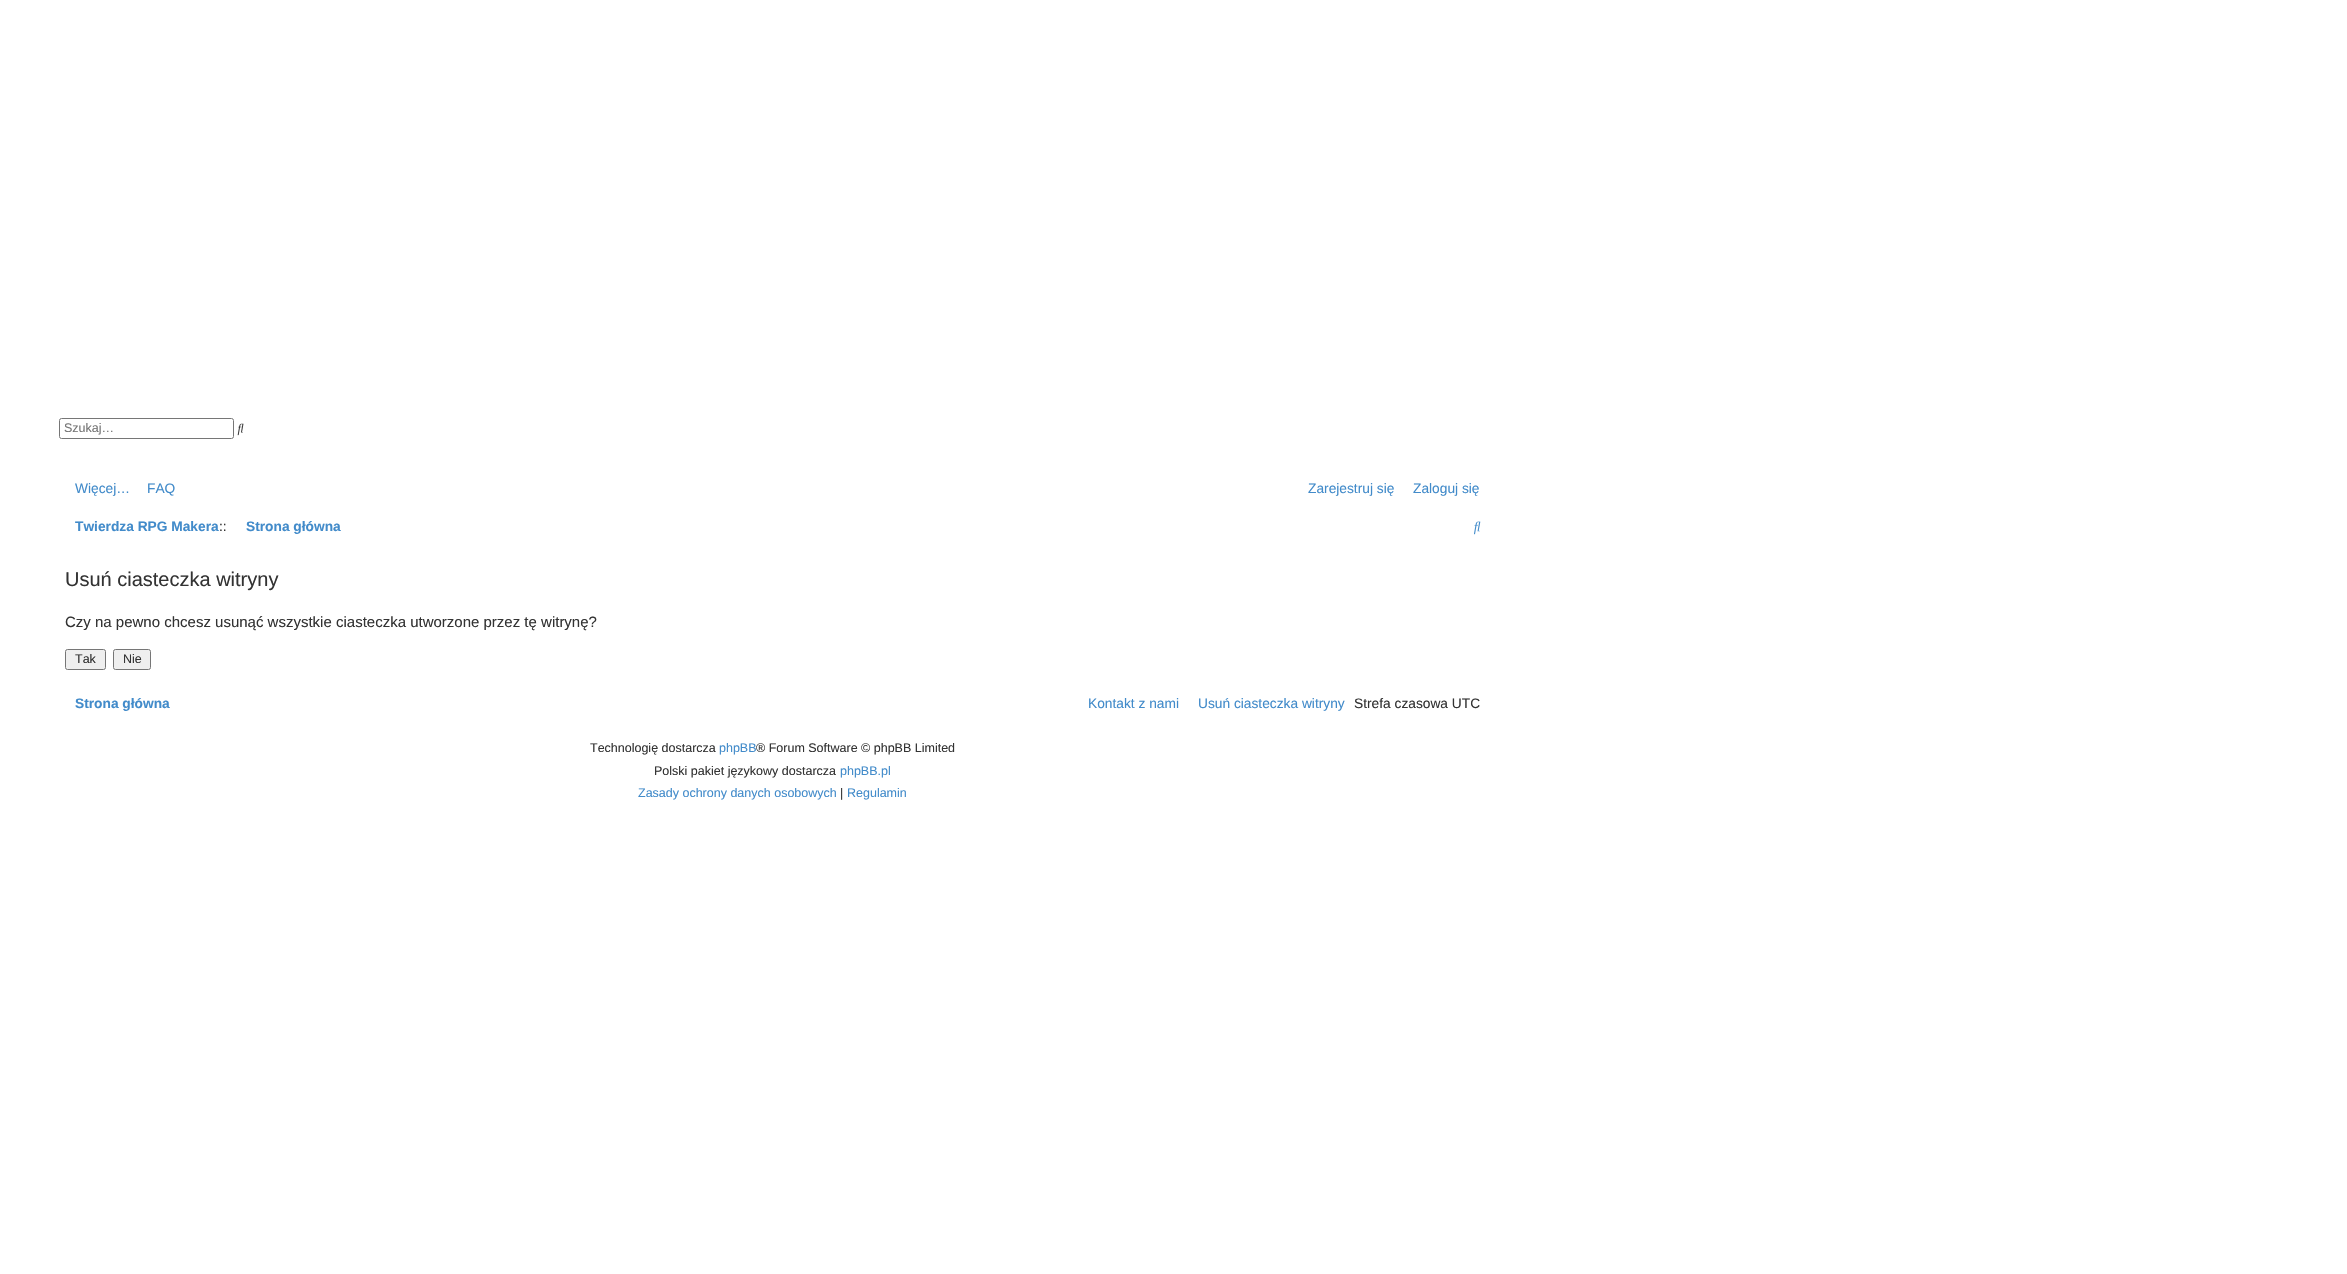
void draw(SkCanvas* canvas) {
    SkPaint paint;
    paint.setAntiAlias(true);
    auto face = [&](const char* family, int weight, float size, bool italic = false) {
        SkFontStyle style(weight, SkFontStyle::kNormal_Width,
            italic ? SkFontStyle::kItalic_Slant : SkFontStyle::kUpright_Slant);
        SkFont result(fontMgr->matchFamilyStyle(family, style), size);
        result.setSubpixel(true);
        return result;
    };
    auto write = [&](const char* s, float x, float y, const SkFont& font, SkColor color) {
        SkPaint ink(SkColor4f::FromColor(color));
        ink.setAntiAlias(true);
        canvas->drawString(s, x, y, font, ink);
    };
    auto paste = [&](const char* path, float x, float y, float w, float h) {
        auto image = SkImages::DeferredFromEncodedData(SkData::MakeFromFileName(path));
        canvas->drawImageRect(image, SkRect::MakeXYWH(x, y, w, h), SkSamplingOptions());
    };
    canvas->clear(SK_ColorWHITE);
    paint.setStyle(SkPaint::kStroke_Style);
    paint.setStrokeWidth(1);
    paint.setColor(SkColorSetRGB(118, 118, 118));
    canvas->drawRoundRect(SkRect::MakeXYWH(59.5f, 418.5f, 174, 20), 2, 2, paint);
    auto kFont1 = face("Liberation Sans", 400, 12.5f);
    write("Szukaj…", 64, 432, kFont1, SkColorSetRGB(117, 117, 117));
    paste("pic1.png", 237, 423, 7, 13);
    auto kFont2 = face("Liberation Sans", 400, 13.75f);
    write("Więcej…", 75, 493, kFont2, SkColorSetRGB(66, 139, 202));
    write("FAQ", 147, 493, kFont2, SkColorSetRGB(66, 139, 202));
    write("Zarejestruj się", 1308, 493, kFont2, SkColorSetRGB(66, 139, 202));
    write("Zaloguj się", 1413, 493, kFont2, SkColorSetRGB(66, 139, 202));
    auto kFont3 = face("Liberation Sans", 700, 13.75f);
    write("Twierdza RPG Makera", 75, 531, kFont3, SkColorSetRGB(66, 139, 202));
    write("::", 219, 531, kFont2, SkColorSetRGB(51, 51, 51));
    write("Strona główna", 246, 531, kFont3, SkColorSetRGB(66, 139, 202));
    paste("pic2.png", 1474, 521, 7, 14);
    auto kFont4 = face("Liberation Sans", 400, 20);
    write("Usuń ciasteczka witryny", 65, 586, kFont4, SkColorSetRGB(51, 51, 51));
    auto kFont5 = face("Liberation Sans", 400, 15);
    write("Czy na pewno chcesz usunąć wszystkie ciasteczka utworzone przez tę witrynę?", 65, 627, kFont5, SkColorSetRGB(51, 51, 51));
    paint.setStyle(SkPaint::kFill_Style);
    paint.setColor(SkColorSetRGB(239, 239, 239));
    canvas->drawRoundRect(SkRect::MakeXYWH(65.5f, 649.5f, 40, 20), 2, 2, paint);
    paint.setStyle(SkPaint::kStroke_Style);
    paint.setColor(SkColorSetRGB(118, 118, 118));
    canvas->drawRoundRect(SkRect::MakeXYWH(65.5f, 649.5f, 40, 20), 2, 2, paint);
    write("Tak", 75, 663, kFont1, SkColorSetRGB(51, 51, 51));
    paint.setStyle(SkPaint::kFill_Style);
    paint.setColor(SkColorSetRGB(239, 239, 239));
    canvas->drawRoundRect(SkRect::MakeXYWH(113.5f, 649.5f, 37, 20), 2, 2, paint);
    paint.setStyle(SkPaint::kStroke_Style);
    paint.setColor(SkColorSetRGB(118, 118, 118));
    canvas->drawRoundRect(SkRect::MakeXYWH(113.5f, 649.5f, 37, 20), 2, 2, paint);
    write("Nie", 123, 663, kFont1, SkColorSetRGB(51, 51, 51));
    write("Strona główna", 75, 708, kFont3, SkColorSetRGB(66, 139, 202));
    write("Kontakt z nami", 1088, 708, kFont2, SkColorSetRGB(66, 139, 202));
    write("Usuń ciasteczka witryny", 1198, 708, kFont2, SkColorSetRGB(66, 139, 202));
    write("Strefa czasowa UTC", 1354, 708, kFont2, SkColorSetRGB(51, 51, 51));
    write("Technologię dostarcza", 590, 752, kFont1, SkColorSetRGB(51, 51, 51));
    write("phpBB", 719, 752, kFont1, SkColorSetRGB(66, 139, 202));
    write("® Forum Software © phpBB Limited", 756, 752, kFont1, SkColorSetRGB(51, 51, 51));
    write("Polski pakiet językowy dostarcza", 654, 775, kFont1, SkColorSetRGB(51, 51, 51));
    write("phpBB.pl", 840, 775, kFont1, SkColorSetRGB(66, 139, 202));
    write("Zasady ochrony danych osobowych", 638, 797, kFont1, SkColorSetRGB(66, 139, 202));
    write("|", 840, 797, kFont1, SkColorSetRGB(51, 51, 51));
    write("Regulamin", 847, 797, kFont1, SkColorSetRGB(66, 139, 202));
}
